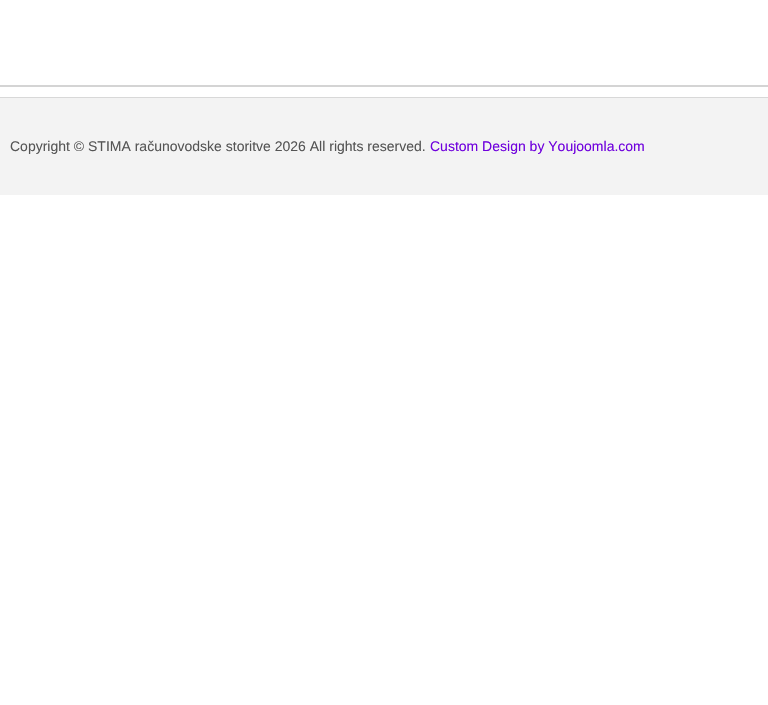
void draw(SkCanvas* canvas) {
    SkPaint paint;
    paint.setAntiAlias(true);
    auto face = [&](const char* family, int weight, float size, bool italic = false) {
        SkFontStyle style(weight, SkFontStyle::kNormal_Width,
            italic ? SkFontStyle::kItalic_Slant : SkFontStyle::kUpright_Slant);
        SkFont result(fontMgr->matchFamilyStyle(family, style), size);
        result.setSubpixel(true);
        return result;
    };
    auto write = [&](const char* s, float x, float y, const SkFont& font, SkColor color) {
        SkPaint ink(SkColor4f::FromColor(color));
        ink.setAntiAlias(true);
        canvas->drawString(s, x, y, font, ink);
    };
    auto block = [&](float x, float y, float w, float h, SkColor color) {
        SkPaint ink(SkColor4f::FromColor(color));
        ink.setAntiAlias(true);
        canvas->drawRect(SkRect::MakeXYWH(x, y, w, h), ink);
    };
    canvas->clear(SK_ColorWHITE);
    block(0, 85, 768, 2, SkColorSetRGB(212, 212, 212));
    block(0, 98, 768, 97, SkColorSetRGB(243, 243, 243));
    block(0, 97, 768, 1, SkColorSetRGB(216, 216, 216));
    auto kFont1 = face("Liberation Sans", 400, 14);
    write("Copyright © STIMA računovodske storitve 2026 All rights reserved.", 10, 151, kFont1, SkColorSetRGB(85, 85, 85));
    write("Custom Design by Youjoomla.com", 430, 151, kFont1, SkColorSetRGB(111, 0, 221));
}
